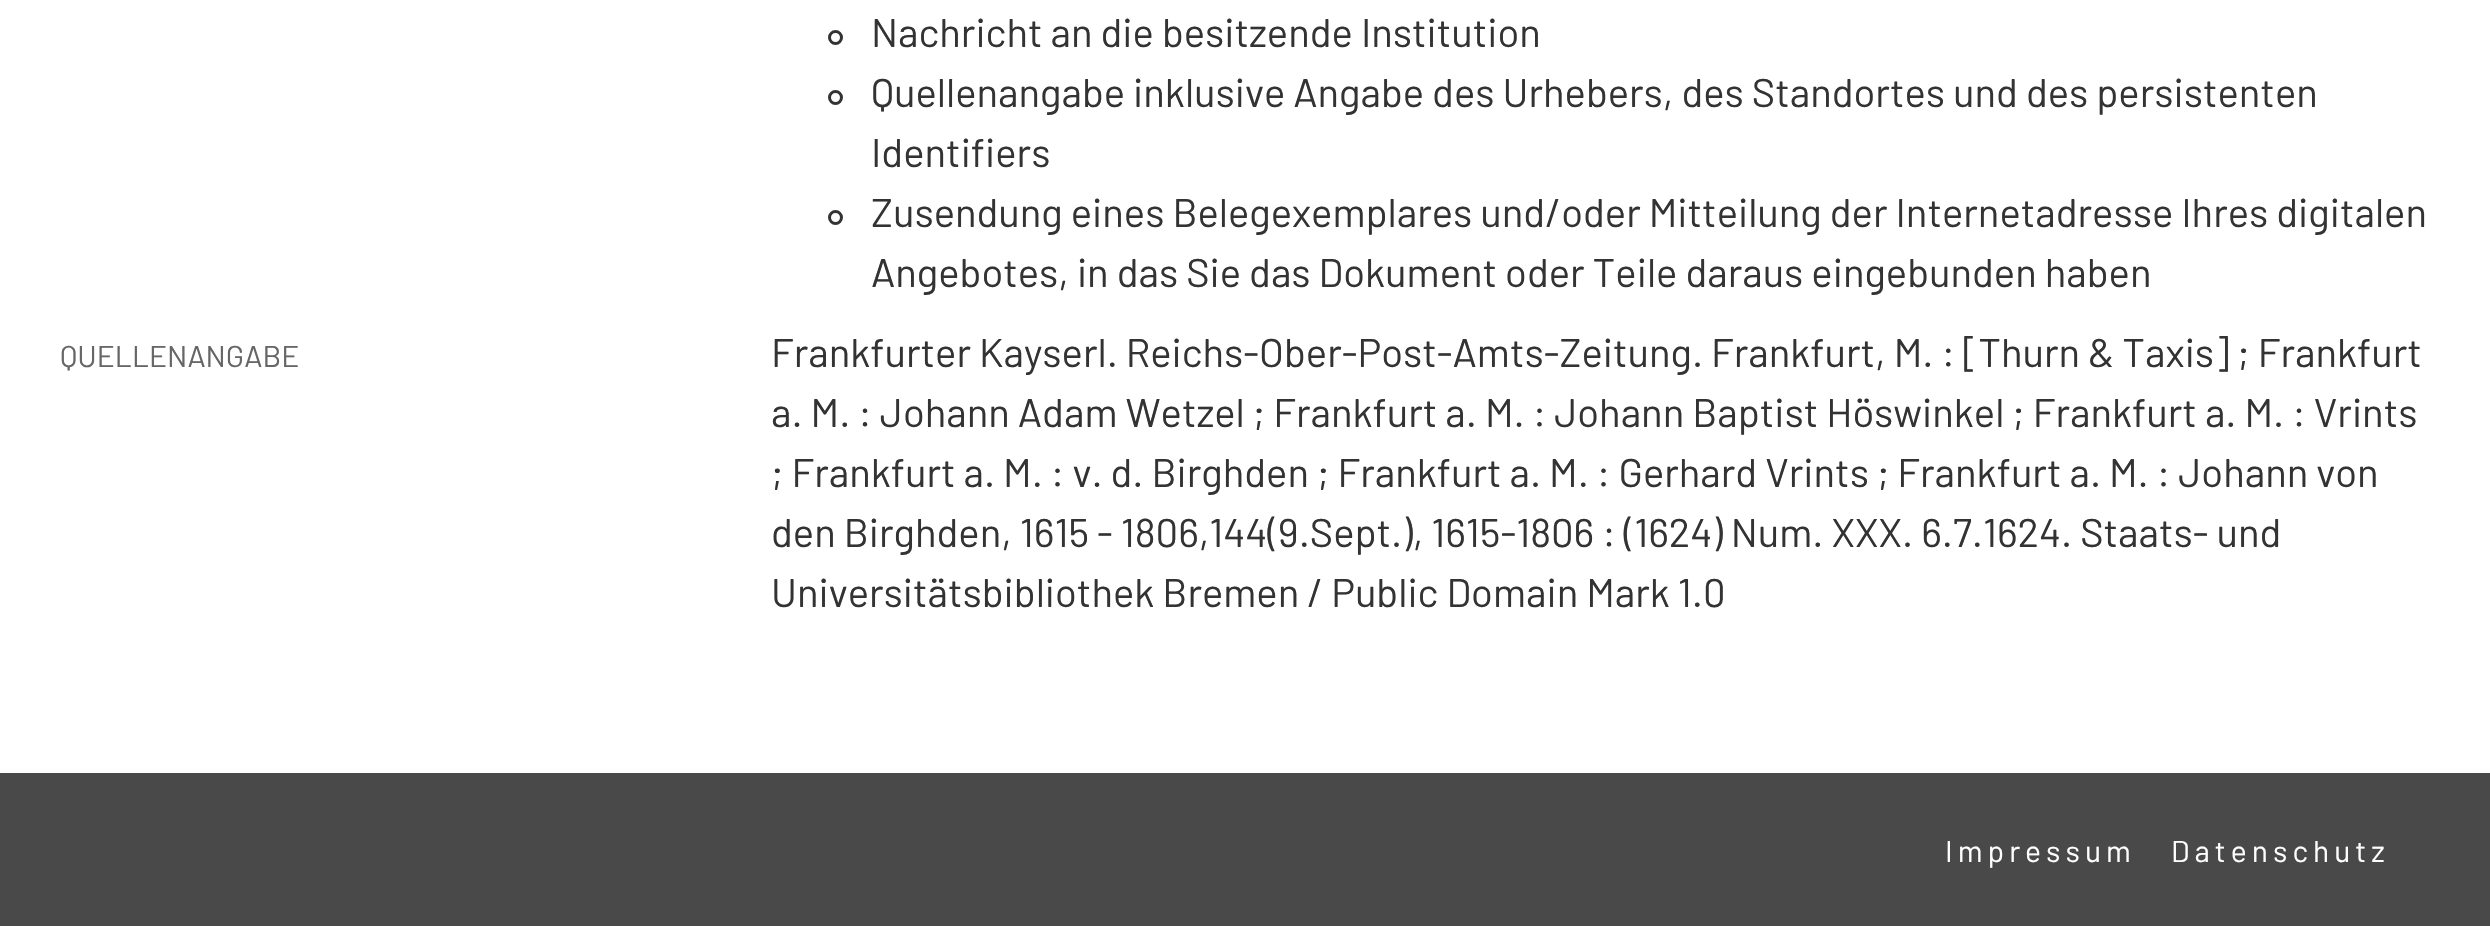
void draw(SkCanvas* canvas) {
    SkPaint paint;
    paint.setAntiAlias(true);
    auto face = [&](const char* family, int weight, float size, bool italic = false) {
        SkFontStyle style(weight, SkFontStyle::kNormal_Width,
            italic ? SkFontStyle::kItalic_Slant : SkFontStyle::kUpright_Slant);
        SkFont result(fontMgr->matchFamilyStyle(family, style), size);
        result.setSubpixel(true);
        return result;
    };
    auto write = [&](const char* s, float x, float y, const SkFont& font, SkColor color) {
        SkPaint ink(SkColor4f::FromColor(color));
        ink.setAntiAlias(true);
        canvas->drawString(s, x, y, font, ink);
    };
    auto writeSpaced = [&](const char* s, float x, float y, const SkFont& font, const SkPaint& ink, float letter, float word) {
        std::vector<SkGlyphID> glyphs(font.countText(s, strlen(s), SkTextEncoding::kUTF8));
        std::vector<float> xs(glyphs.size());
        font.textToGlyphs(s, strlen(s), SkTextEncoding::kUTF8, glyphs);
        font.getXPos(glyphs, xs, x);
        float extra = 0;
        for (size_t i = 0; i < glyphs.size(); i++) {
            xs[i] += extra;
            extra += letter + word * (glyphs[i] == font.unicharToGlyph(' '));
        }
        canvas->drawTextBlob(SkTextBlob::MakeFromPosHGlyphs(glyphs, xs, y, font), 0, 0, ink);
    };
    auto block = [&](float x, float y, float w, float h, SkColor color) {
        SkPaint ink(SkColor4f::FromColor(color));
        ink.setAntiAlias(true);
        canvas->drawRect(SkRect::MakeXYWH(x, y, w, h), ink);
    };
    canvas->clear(SkColorSetRGB(73, 73, 73));
    block(0, 0, 2490, 773, SK_ColorWHITE);
    paint.setStyle(SkPaint::kStroke_Style);
    paint.setStrokeWidth(3);
    paint.setColor(SkColorSetRGB(51, 51, 51));
    canvas->drawCircle(835.5f, 37.5f, 6, paint);
    auto kFont1 = face("Barlow", 400, 40);
    write("Nachricht an die besitzende Institution", 871, 47, kFont1, SkColorSetRGB(51, 51, 51));
    canvas->drawCircle(835.5f, 97.5f, 6, paint);
    write("Quellenangabe inklusive Angabe des Urhebers, des Standortes und des persistenten", 871, 107, kFont1, SkColorSetRGB(51, 51, 51));
    write("Identifiers", 871, 167, kFont1, SkColorSetRGB(51, 51, 51));
    canvas->drawCircle(835.5f, 217.5f, 6, paint);
    write("Zusendung eines Belegexemplares und/oder Mitteilung der Internetadresse Ihres digitalen", 871, 227, kFont1, SkColorSetRGB(51, 51, 51));
    write("Angebotes, in das Sie das Dokument oder Teile daraus eingebunden haben", 871, 287, kFont1, SkColorSetRGB(51, 51, 51));
    auto kFont2 = face("Barlow", 400, 30);
    write("QUELLENANGABE", 60, 367, kFont2, SkColorSetRGB(102, 102, 102));
    write("Frankfurter Kayserl. Reichs-Ober-Post-Amts-Zeitung. Frankfurt, M. : [Thurn & Taxis] ; Frankfurt", 771, 367, kFont1, SkColorSetRGB(51, 51, 51));
    write("a. M. : Johann Adam Wetzel ; Frankfurt a. M. : Johann Baptist Höswinkel ; Frankfurt a. M. : Vrints", 771, 427, kFont1, SkColorSetRGB(51, 51, 51));
    write("; Frankfurt a. M. : v. d. Birghden ; Frankfurt a. M. : Gerhard Vrints ; Frankfurt a. M. : Johann von", 771, 487, kFont1, SkColorSetRGB(51, 51, 51));
    write("den Birghden, 1615 - 1806,144(9.Sept.), 1615-1806 : (1624) Num. XXX. 6.7.1624. Staats- und", 771, 547, kFont1, SkColorSetRGB(51, 51, 51));
    write("Universitätsbibliothek Bremen / Public Domain Mark 1.0", 771, 607, kFont1, SkColorSetRGB(51, 51, 51));
    paint.setStyle(SkPaint::kFill_Style);
    paint.setColor(SK_ColorWHITE);
    writeSpaced("Impressum", 1945, 862, kFont2, paint, 5, 0);
    writeSpaced("Datenschutz", 2171, 862, kFont2, paint, 5, 0);
}
